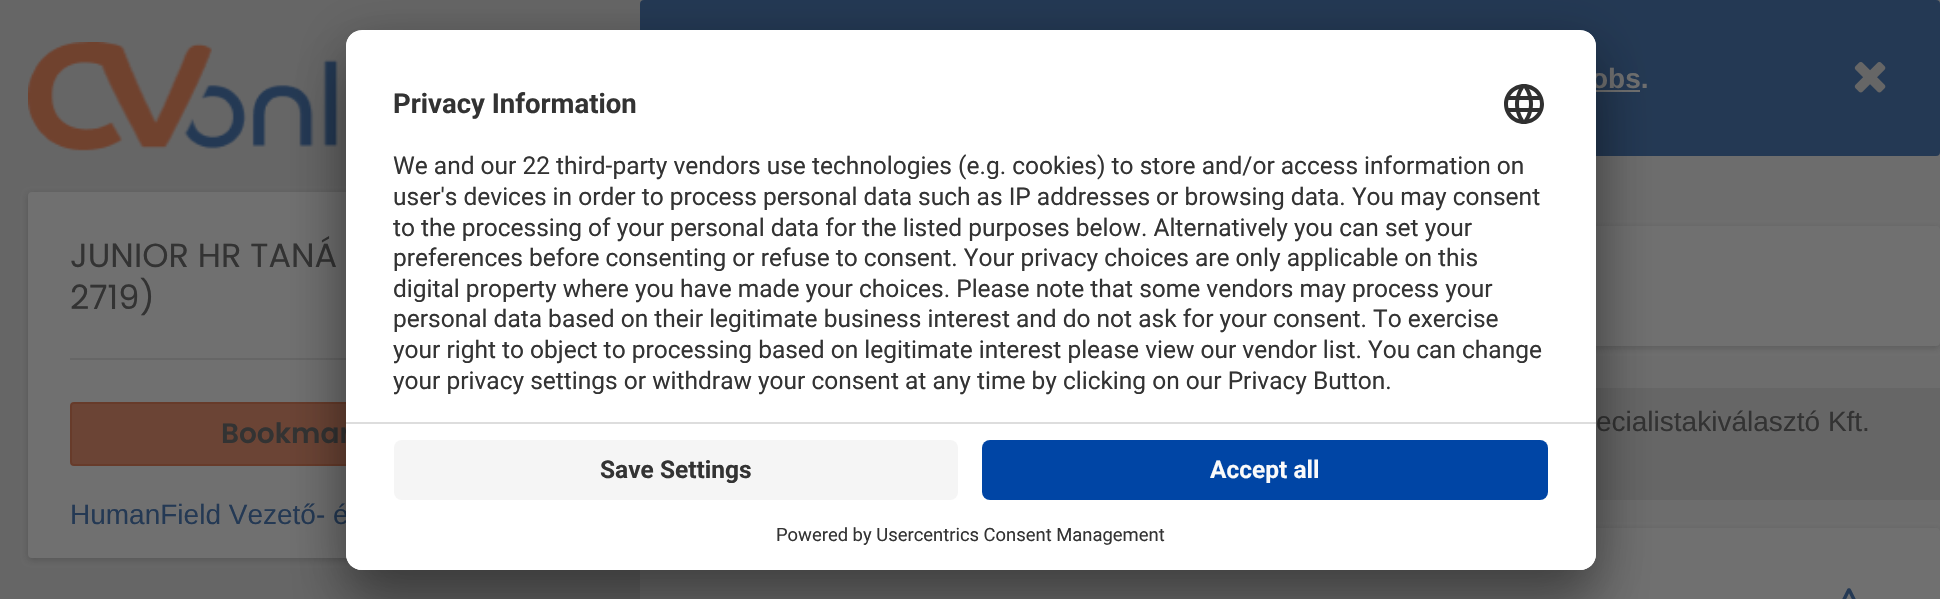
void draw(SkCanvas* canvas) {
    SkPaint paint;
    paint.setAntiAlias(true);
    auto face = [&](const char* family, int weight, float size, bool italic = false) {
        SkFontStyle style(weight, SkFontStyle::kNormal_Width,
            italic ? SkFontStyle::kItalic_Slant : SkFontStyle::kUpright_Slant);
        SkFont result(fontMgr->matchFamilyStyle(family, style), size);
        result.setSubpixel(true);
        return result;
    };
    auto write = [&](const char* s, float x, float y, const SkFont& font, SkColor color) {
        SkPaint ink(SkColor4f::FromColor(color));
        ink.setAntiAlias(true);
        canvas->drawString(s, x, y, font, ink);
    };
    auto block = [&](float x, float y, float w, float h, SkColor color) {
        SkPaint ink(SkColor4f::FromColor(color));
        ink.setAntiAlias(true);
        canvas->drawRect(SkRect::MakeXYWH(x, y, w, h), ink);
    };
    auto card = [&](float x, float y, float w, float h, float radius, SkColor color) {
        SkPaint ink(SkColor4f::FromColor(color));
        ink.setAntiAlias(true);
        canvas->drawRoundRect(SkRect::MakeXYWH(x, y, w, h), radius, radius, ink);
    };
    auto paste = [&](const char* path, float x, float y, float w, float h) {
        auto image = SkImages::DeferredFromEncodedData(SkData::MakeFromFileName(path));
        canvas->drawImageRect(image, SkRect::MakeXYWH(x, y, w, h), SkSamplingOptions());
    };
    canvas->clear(SkColorSetRGB(109, 109, 109));
    paint.setColor(SkColorSetARGB(64, 36, 36, 36));
    paint.setMaskFilter(SkMaskFilter::MakeBlur(kNormal_SkBlurStyle, 3));
    canvas->drawRoundRect(SkRect::MakeXYWH(640, 228, 1300, 120), 4, 4, paint);
    paint.setMaskFilter(nullptr);
    paint.setMaskFilter(SkMaskFilter::MakeBlur(kNormal_SkBlurStyle, 3));
    canvas->drawRoundRect(SkRect::MakeXYWH(640, 530, 1300, 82), 4, 4, paint);
    paint.setMaskFilter(nullptr);
    block(0, 0, 640, 599, SkColorSetRGB(102, 102, 102));
    paste("pic1.png", 28, 42, 310, 109);
    paint.setMaskFilter(SkMaskFilter::MakeBlur(kNormal_SkBlurStyle, 3));
    canvas->drawRoundRect(SkRect::MakeXYWH(28, 194, 584, 366), 4, 4, paint);
    paint.setMaskFilter(nullptr);
    card(28, 192, 584, 366, 4, SkColorSetRGB(112, 112, 112));
    block(70, 358, 276, 2, SkColorSetRGB(102, 102, 102));
    auto kFont1 = face("Poppins", 400, 33.5f);
    write("JUNIOR HR TANÁ", 70, 267, kFont1, SkColorSetRGB(51, 51, 51));
    write("2719)", 70, 309, kFont1, SkColorSetRGB(51, 51, 51));
    paint.setColor(SkColorSetRGB(107, 68, 53));
    canvas->drawRoundRect(SkRect::MakeXYWH(71, 403, 498, 62), 3, 3, paint);
    paint.setStyle(SkPaint::kStroke_Style);
    paint.setStrokeWidth(2);
    paint.setColor(SkColorSetRGB(103, 59, 42));
    canvas->drawRoundRect(SkRect::MakeXYWH(71, 403, 498, 62), 3, 3, paint);
    auto kFont2 = face("Poppins", 600, 28);
    write("Bookmar", 221, 443, kFont2, SkColorSetRGB(51, 51, 51));
    auto kFont3 = face("Liberation Sans", 400, 28);
    write("HumanField Vezető- é", 70, 524, kFont3, SkColorSetRGB(36, 57, 84));
    card(640, 0, 1300, 156, 4, SkColorSetRGB(36, 57, 84));
    auto kFont4 = face("Liberation Sans", 700, 28);
    write("obs.", 1591, 88, kFont4, SkColorSetRGB(112, 112, 112));
    block(1596, 90, 44, 2, SkColorSetRGB(112, 112, 112));
    paste("pic2.png", 1854, 62, 32, 31);
    card(640, 226, 1300, 120, 4, SkColorSetRGB(112, 112, 112));
    block(1596, 388, 344, 112, SkColorSetRGB(102, 102, 102));
    write("ecialistakiválasztó Kft.", 1596, 431, kFont3, SkColorSetRGB(51, 51, 51));
    card(640, 528, 1300, 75, 4, SkColorSetRGB(112, 112, 112));
    paste("pic3.png", 1842, 588, 14, 11);
    paint.setStyle(SkPaint::kFill_Style);
    paint.setColor(SkColorSetARGB(77, 0, 0, 0));
    paint.setMaskFilter(SkMaskFilter::MakeBlur(kNormal_SkBlurStyle, 28));
    canvas->drawRoundRect(SkRect::MakeXYWH(346, 70, 1250, 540), 16, 16, paint);
    paint.setMaskFilter(nullptr);
    paint.setColor(SkColorSetARGB(56, 0, 0, 0));
    paint.setMaskFilter(SkMaskFilter::MakeBlur(kNormal_SkBlurStyle, 26));
    canvas->drawRoundRect(SkRect::MakeXYWH(346, 40, 1250, 540), 16, 16, paint);
    paint.setMaskFilter(nullptr);
    card(346, 30, 1250, 540, 16, SK_ColorWHITE);
    canvas->save();
    canvas->clipPath(SkPathBuilder().moveTo(362, 30).lineTo(1580, 30).cubicTo(1589, 30, 1596, 37, 1596, 46).lineTo(1596, 554).cubicTo(1596, 563, 1589, 570, 1580, 570).lineTo(362, 570).cubicTo(353, 570, 346, 563, 346, 554).lineTo(346, 46).cubicTo(346, 37, 353, 30, 362, 30).close().detach(), true);
    canvas->clipPath(SkPathBuilder().moveTo(362, 30).lineTo(1580, 30).cubicTo(1589, 30, 1596, 37, 1596, 46).lineTo(1596, 422).lineTo(346, 422).lineTo(346, 46).cubicTo(346, 37, 353, 30, 362, 30).close().detach(), true);
    block(346, 32, 1250, 390, SK_ColorWHITE);
    canvas->restore();
    auto kFont5 = face("Roboto", 700, 27.5f);
    write("Privacy Information", 393, 113, kFont5, SkColorSetRGB(51, 51, 51));
    paste("pic4.png", 1504, 84, 40, 40);
    auto kFont6 = face("Roboto", 400, 24.5f);
    write("We and our 22 third-party vendors use technologies (e.g. cookies) to store and/or access information on", 393, 174, kFont6, SkColorSetRGB(51, 51, 51));
    write("user's devices in order to process personal data such as IP addresses or browsing data. You may consent", 393, 205, kFont6, SkColorSetRGB(51, 51, 51));
    write("to the processing of your personal data for the listed purposes below. Alternatively you can set your", 393, 236, kFont6, SkColorSetRGB(51, 51, 51));
    write("preferences before consenting or refuse to consent. Your privacy choices are only applicable on this", 393, 266, kFont6, SkColorSetRGB(51, 51, 51));
    write("digital property where you have made your choices. Please note that some vendors may process your", 393, 297, kFont6, SkColorSetRGB(51, 51, 51));
    write("personal data based on their legitimate business interest and do not ask for your consent. To exercise", 393, 327, kFont6, SkColorSetRGB(51, 51, 51));
    write("your right to object to processing based on legitimate interest please view our vendor list. You can change", 393, 358, kFont6, SkColorSetRGB(51, 51, 51));
    write("your privacy settings or withdraw your consent at any time by clicking on our Privacy Button.", 393, 389, kFont6, SkColorSetRGB(51, 51, 51));
    paint.setColor(SK_ColorWHITE);
    canvas->drawPath(SkPathBuilder().moveTo(346, 422).lineTo(1596, 422).lineTo(1596, 554).cubicTo(1596, 563, 1589, 570, 1580, 570).lineTo(362, 570).cubicTo(353, 570, 346, 563, 346, 554).close().detach(), paint);
    block(346, 422, 1250, 2, SkColorSetRGB(221, 221, 221));
    card(394, 440, 564, 60, 8, SkColorSetRGB(245, 245, 245));
    auto kFont7 = face("Roboto", 700, 24.5f);
    write("Save Settings", 600, 478, kFont7, SkColorSetRGB(51, 51, 51));
    card(982, 440, 566, 60, 8, SkColorSetRGB(0, 69, 165));
    write("Accept all", 1210, 478, kFont7, SkColorSetRGB(250, 250, 250));
    auto kFont8 = face("Roboto", 400, 18.4f);
    write("Powered by Usercentrics Consent Management", 776, 541, kFont8, SkColorSetRGB(51, 51, 51));
}
